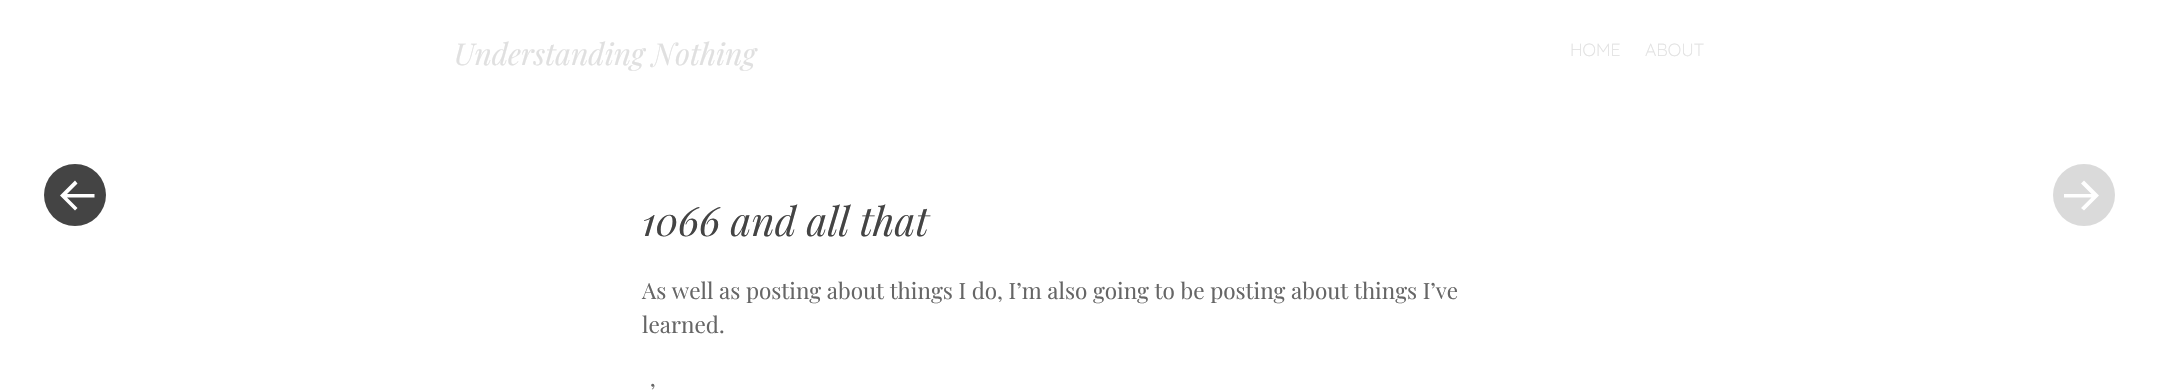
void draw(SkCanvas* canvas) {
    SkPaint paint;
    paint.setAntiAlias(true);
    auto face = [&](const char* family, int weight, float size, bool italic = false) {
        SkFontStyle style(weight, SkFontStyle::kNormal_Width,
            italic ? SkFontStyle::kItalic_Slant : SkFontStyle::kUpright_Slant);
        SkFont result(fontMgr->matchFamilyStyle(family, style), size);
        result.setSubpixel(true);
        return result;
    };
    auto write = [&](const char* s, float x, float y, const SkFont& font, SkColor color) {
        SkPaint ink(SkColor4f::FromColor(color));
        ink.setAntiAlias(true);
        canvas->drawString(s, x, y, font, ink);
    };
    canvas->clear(SK_ColorWHITE);
    auto kFont1 = face("Playfair Display", 400, 30, true);
    write("Understanding Nothing", 454, 65, kFont1, SkColorSetRGB(224, 224, 224));
    auto kFont2 = face("Quicksand", 300, 17.5f);
    write("HOME", 1570, 56, kFont2, SkColorSetRGB(224, 224, 224));
    write("ABOUT", 1645, 56, kFont2, SkColorSetRGB(224, 224, 224));
    paint.setColor(SkColorSetRGB(68, 68, 68));
    canvas->drawCircle(75, 195, 31, paint);
    paint.setColor(SK_ColorWHITE);
    canvas->drawPath(SkPathBuilder().moveTo(60, 195.5f).lineTo(75, 210.5f).lineTo(77.5f, 208).lineTo(67, 197.5f).lineTo(94.5f, 197.5f).lineTo(94.5f, 194).lineTo(67, 194).lineTo(77.5f, 183.5f).lineTo(75, 180.5f).close().detach(), paint);
    paint.setColor(SkColorSetRGB(218, 218, 218));
    canvas->drawCircle(2084, 195, 31, paint);
    paint.setColor(SK_ColorWHITE);
    canvas->drawPath(SkPathBuilder().moveTo(2099, 195.5f).lineTo(2084, 210.5f).lineTo(2081, 208).lineTo(2091.5f, 197.5f).lineTo(2064, 197.5f).lineTo(2064, 194).lineTo(2091.5f, 194).lineTo(2081, 183.5f).lineTo(2084, 180.5f).close().detach(), paint);
    auto kFont3 = face("Playfair Display", 400, 40, true);
    write("1066 and all that", 642, 236, kFont3, SkColorSetRGB(68, 68, 68));
    auto kFont4 = face("Playfair Display", 400, 22.5f);
    write("As well as posting about things I do, I’m also going to be posting about things I’ve", 642, 299, kFont4, SkColorSetRGB(102, 102, 102));
    write("learned.", 642, 333, kFont4, SkColorSetRGB(102, 102, 102));
    write("’", 650, 400, kFont4, SkColorSetRGB(102, 102, 102));
}
